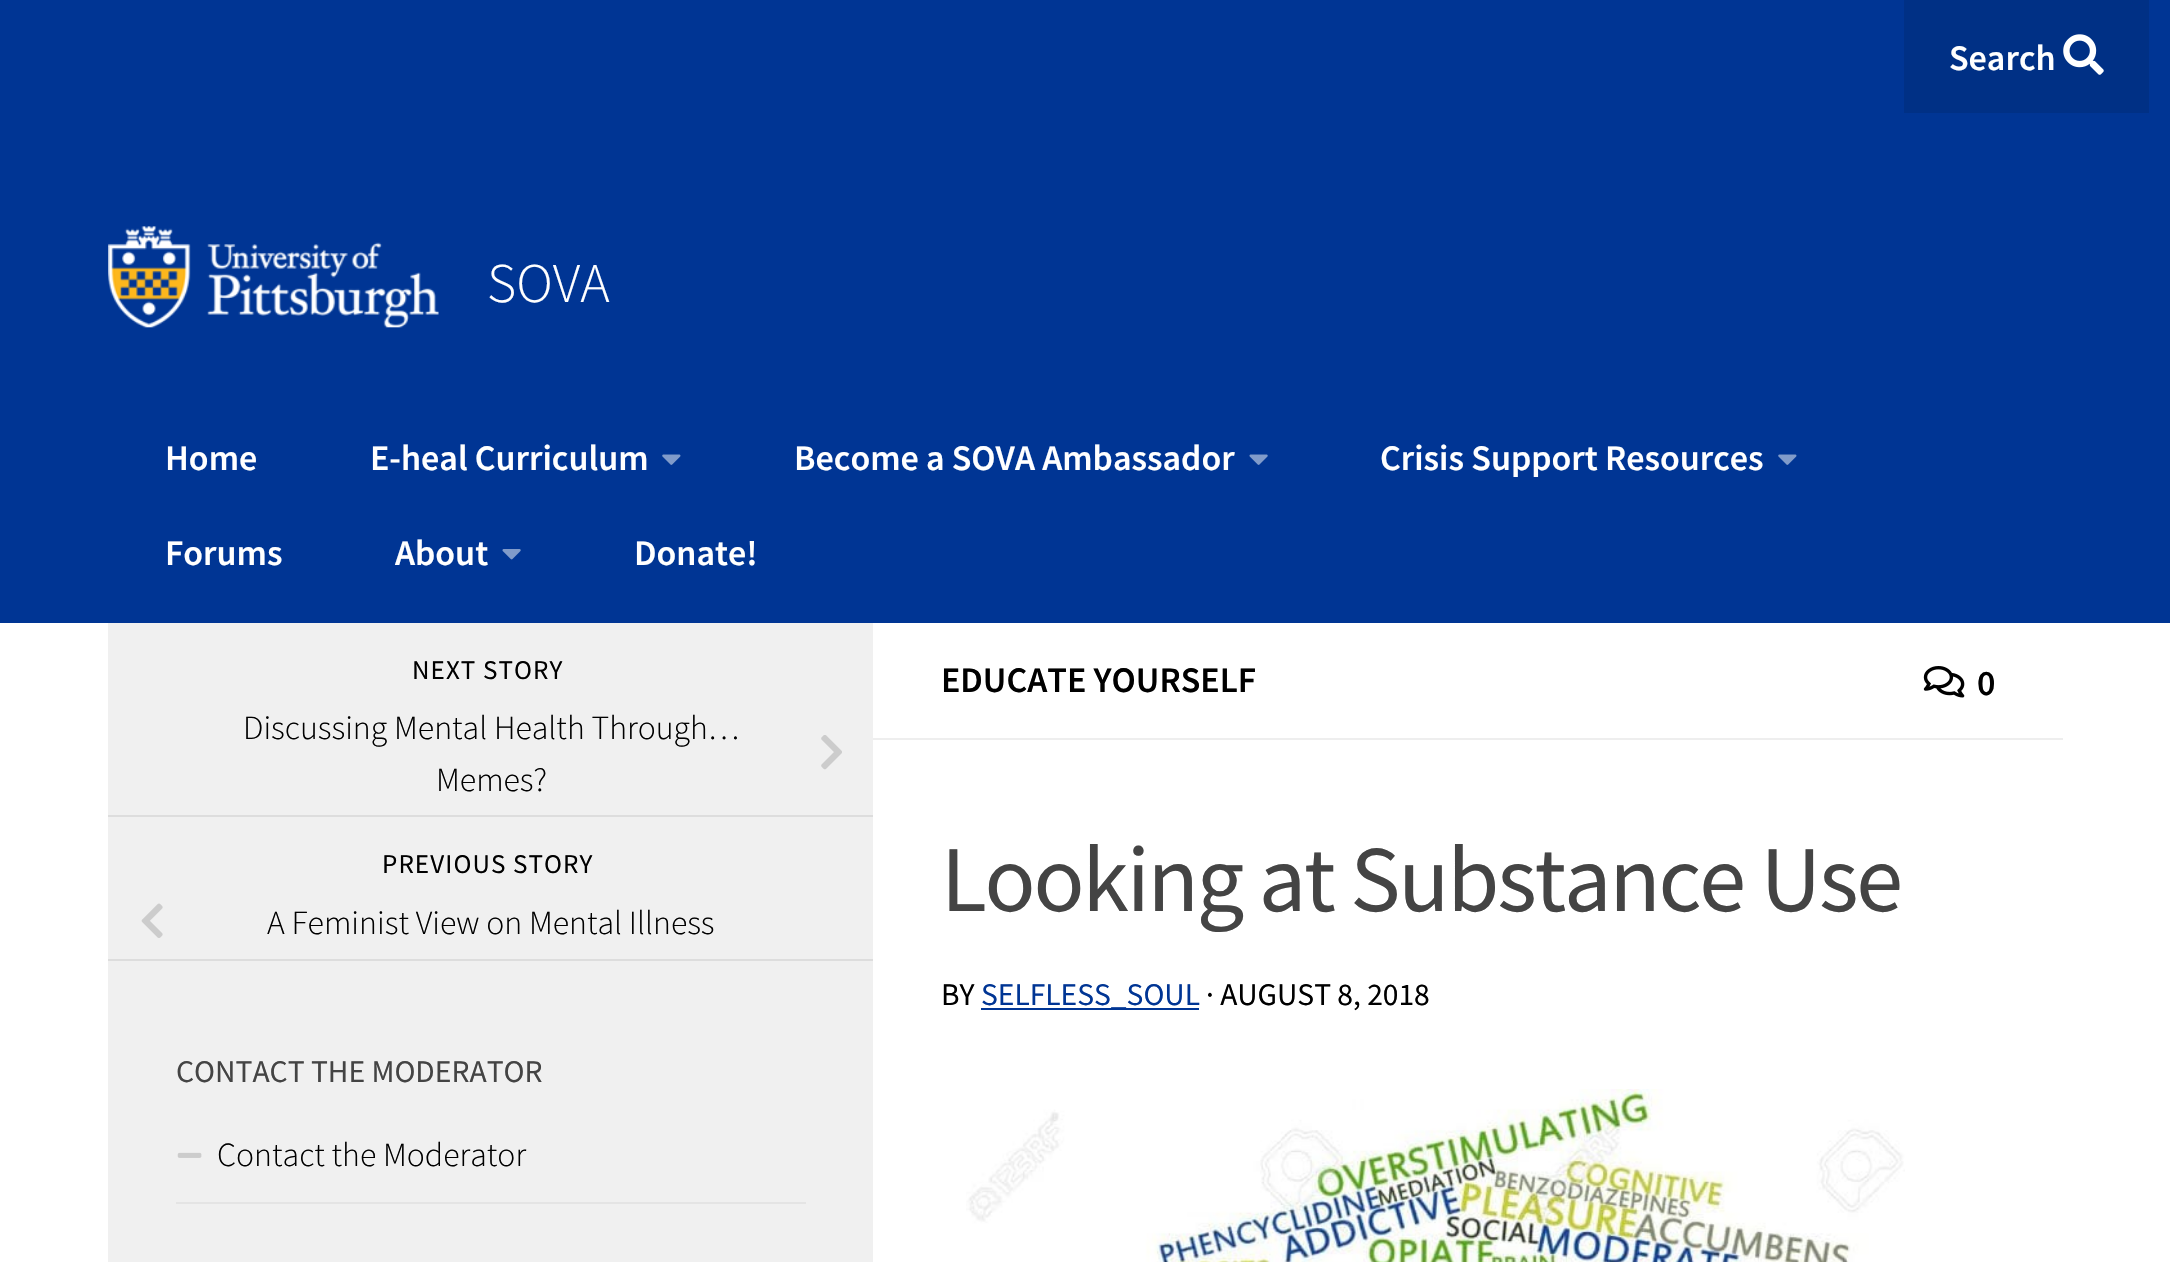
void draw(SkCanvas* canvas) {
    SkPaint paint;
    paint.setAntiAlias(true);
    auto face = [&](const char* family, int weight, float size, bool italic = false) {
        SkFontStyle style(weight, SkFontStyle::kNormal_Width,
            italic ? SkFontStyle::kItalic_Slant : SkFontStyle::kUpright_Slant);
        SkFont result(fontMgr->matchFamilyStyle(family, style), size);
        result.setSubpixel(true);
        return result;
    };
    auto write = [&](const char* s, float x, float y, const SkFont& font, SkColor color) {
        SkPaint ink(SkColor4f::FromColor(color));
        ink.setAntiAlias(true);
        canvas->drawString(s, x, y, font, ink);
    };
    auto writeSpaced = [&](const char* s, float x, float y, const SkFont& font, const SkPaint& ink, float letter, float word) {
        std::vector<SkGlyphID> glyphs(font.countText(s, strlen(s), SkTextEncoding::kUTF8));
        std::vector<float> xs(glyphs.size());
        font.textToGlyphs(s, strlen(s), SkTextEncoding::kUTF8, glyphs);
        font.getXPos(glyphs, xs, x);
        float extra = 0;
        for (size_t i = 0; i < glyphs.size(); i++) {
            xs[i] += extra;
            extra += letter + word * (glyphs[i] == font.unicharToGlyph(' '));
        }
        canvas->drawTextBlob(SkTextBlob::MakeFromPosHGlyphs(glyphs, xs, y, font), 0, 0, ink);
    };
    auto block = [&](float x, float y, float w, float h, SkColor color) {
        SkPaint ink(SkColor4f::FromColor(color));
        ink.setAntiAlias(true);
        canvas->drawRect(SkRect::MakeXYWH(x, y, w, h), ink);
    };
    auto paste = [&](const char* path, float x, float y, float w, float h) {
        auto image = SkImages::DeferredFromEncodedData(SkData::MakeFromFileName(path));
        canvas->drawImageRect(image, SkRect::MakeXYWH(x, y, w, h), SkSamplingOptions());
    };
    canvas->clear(SK_ColorWHITE);
    block(0, 0, 2170, 623, SkColorSetRGB(0, 53, 148));
    block(1904, 0, 245, 113, SkColorSetRGB(0, 48, 133));
    auto kFont1 = face("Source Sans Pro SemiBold", 600, 36);
    write("Search", 1949, 70, kFont1, SK_ColorWHITE);
    paste("pic1.png", 2063, 34, 41, 41);
    paste("pic2.png", 108, 226, 331, 102);
    auto kFont2 = face("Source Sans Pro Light", 300, 56);
    write("SOVA", 487, 302, kFont2, SK_ColorWHITE);
    write("Home", 165, 470, kFont1, SK_ColorWHITE);
    write("E-heal Curriculum", 370, 470, kFont1, SK_ColorWHITE);
    paste("pic3.png", 662, 454, 19, 11);
    write("Become a SOVA Ambassador", 794, 470, kFont1, SK_ColorWHITE);
    paste("pic4.png", 1249, 454, 19, 11);
    write("Crisis Support Resources", 1380, 470, kFont1, SK_ColorWHITE);
    paste("pic3.png", 1778, 454, 19, 11);
    write("Forums", 165, 565, kFont1, SK_ColorWHITE);
    write("About", 395, 565, kFont1, SK_ColorWHITE);
    paste("pic5.png", 502, 549, 19, 11);
    write("Donate!", 634, 565, kFont1, SK_ColorWHITE);
    block(108, 623, 765, 639, SkColorSetRGB(240, 240, 240));
    auto kFont3 = face("Source Sans Pro", 400, 27);
    paint.setColor(SK_ColorBLACK);
    writeSpaced("NEXT STORY", 412, 679, kFont3, paint, 1.1f, 0);
    block(108, 815, 765, 2, SkColorSetRGB(221, 221, 221));
    auto kFont4 = face("Source Sans Pro Light", 300, 33.75f);
    write("Discussing Mental Health Through…", 243, 739, kFont4, SK_ColorBLACK);
    paste("pic6.png", 821, 735, 21, 35);
    write("Memes?", 436, 791, kFont4, SK_ColorBLACK);
    writeSpaced("PREVIOUS STORY", 382, 873, kFont3, paint, 1.1f, 0);
    block(108, 959, 765, 2, SkColorSetRGB(221, 221, 221));
    paste("pic7.png", 141, 903, 22, 35);
    write("A Feminist View on Mental Illness", 267, 934, kFont4, SK_ColorBLACK);
    auto kFont5 = face("Source Sans Pro", 400, 31.6f);
    write("CONTACT THE MODERATOR", 176, 1082, kFont5, SkColorSetRGB(68, 68, 68));
    block(176, 1202, 630, 2, SkColorSetRGB(228, 228, 228));
    paste("pic8.png", 177, 1152, 25, 6);
    write("Contact the Moderator", 217, 1166, kFont4, SK_ColorBLACK);
    block(873, 738, 1190, 2, SkColorSetRGB(238, 238, 238));
    write("EDUCATE YOURSELF", 941, 692, kFont1, SK_ColorBLACK);
    paste("pic9.png", 1923, 666, 42, 32);
    write("0", 1977, 695, kFont1, SK_ColorBLACK);
    auto kFont6 = face("Source Sans Pro", 400, 94.25f);
    paint.setColor(SkColorSetRGB(68, 68, 68));
    writeSpaced("Looking at Substance Use", 941, 911, kFont6, paint, -2.25f, 0);
    auto kFont7 = face("Source Sans Pro", 400, 31.5f);
    write("BY", 941, 1005, kFont7, SK_ColorBLACK);
    block(981, 1008, 218, 2, SkColorSetRGB(0, 53, 148));
    write("SELFLESS_SOUL", 981, 1005, kFont7, SkColorSetRGB(0, 53, 148));
    write("· AUGUST 8, 2018", 1206, 1005, kFont7, SK_ColorBLACK);
    paste("pic10.png", 966, 1089, 939, 173);
}
